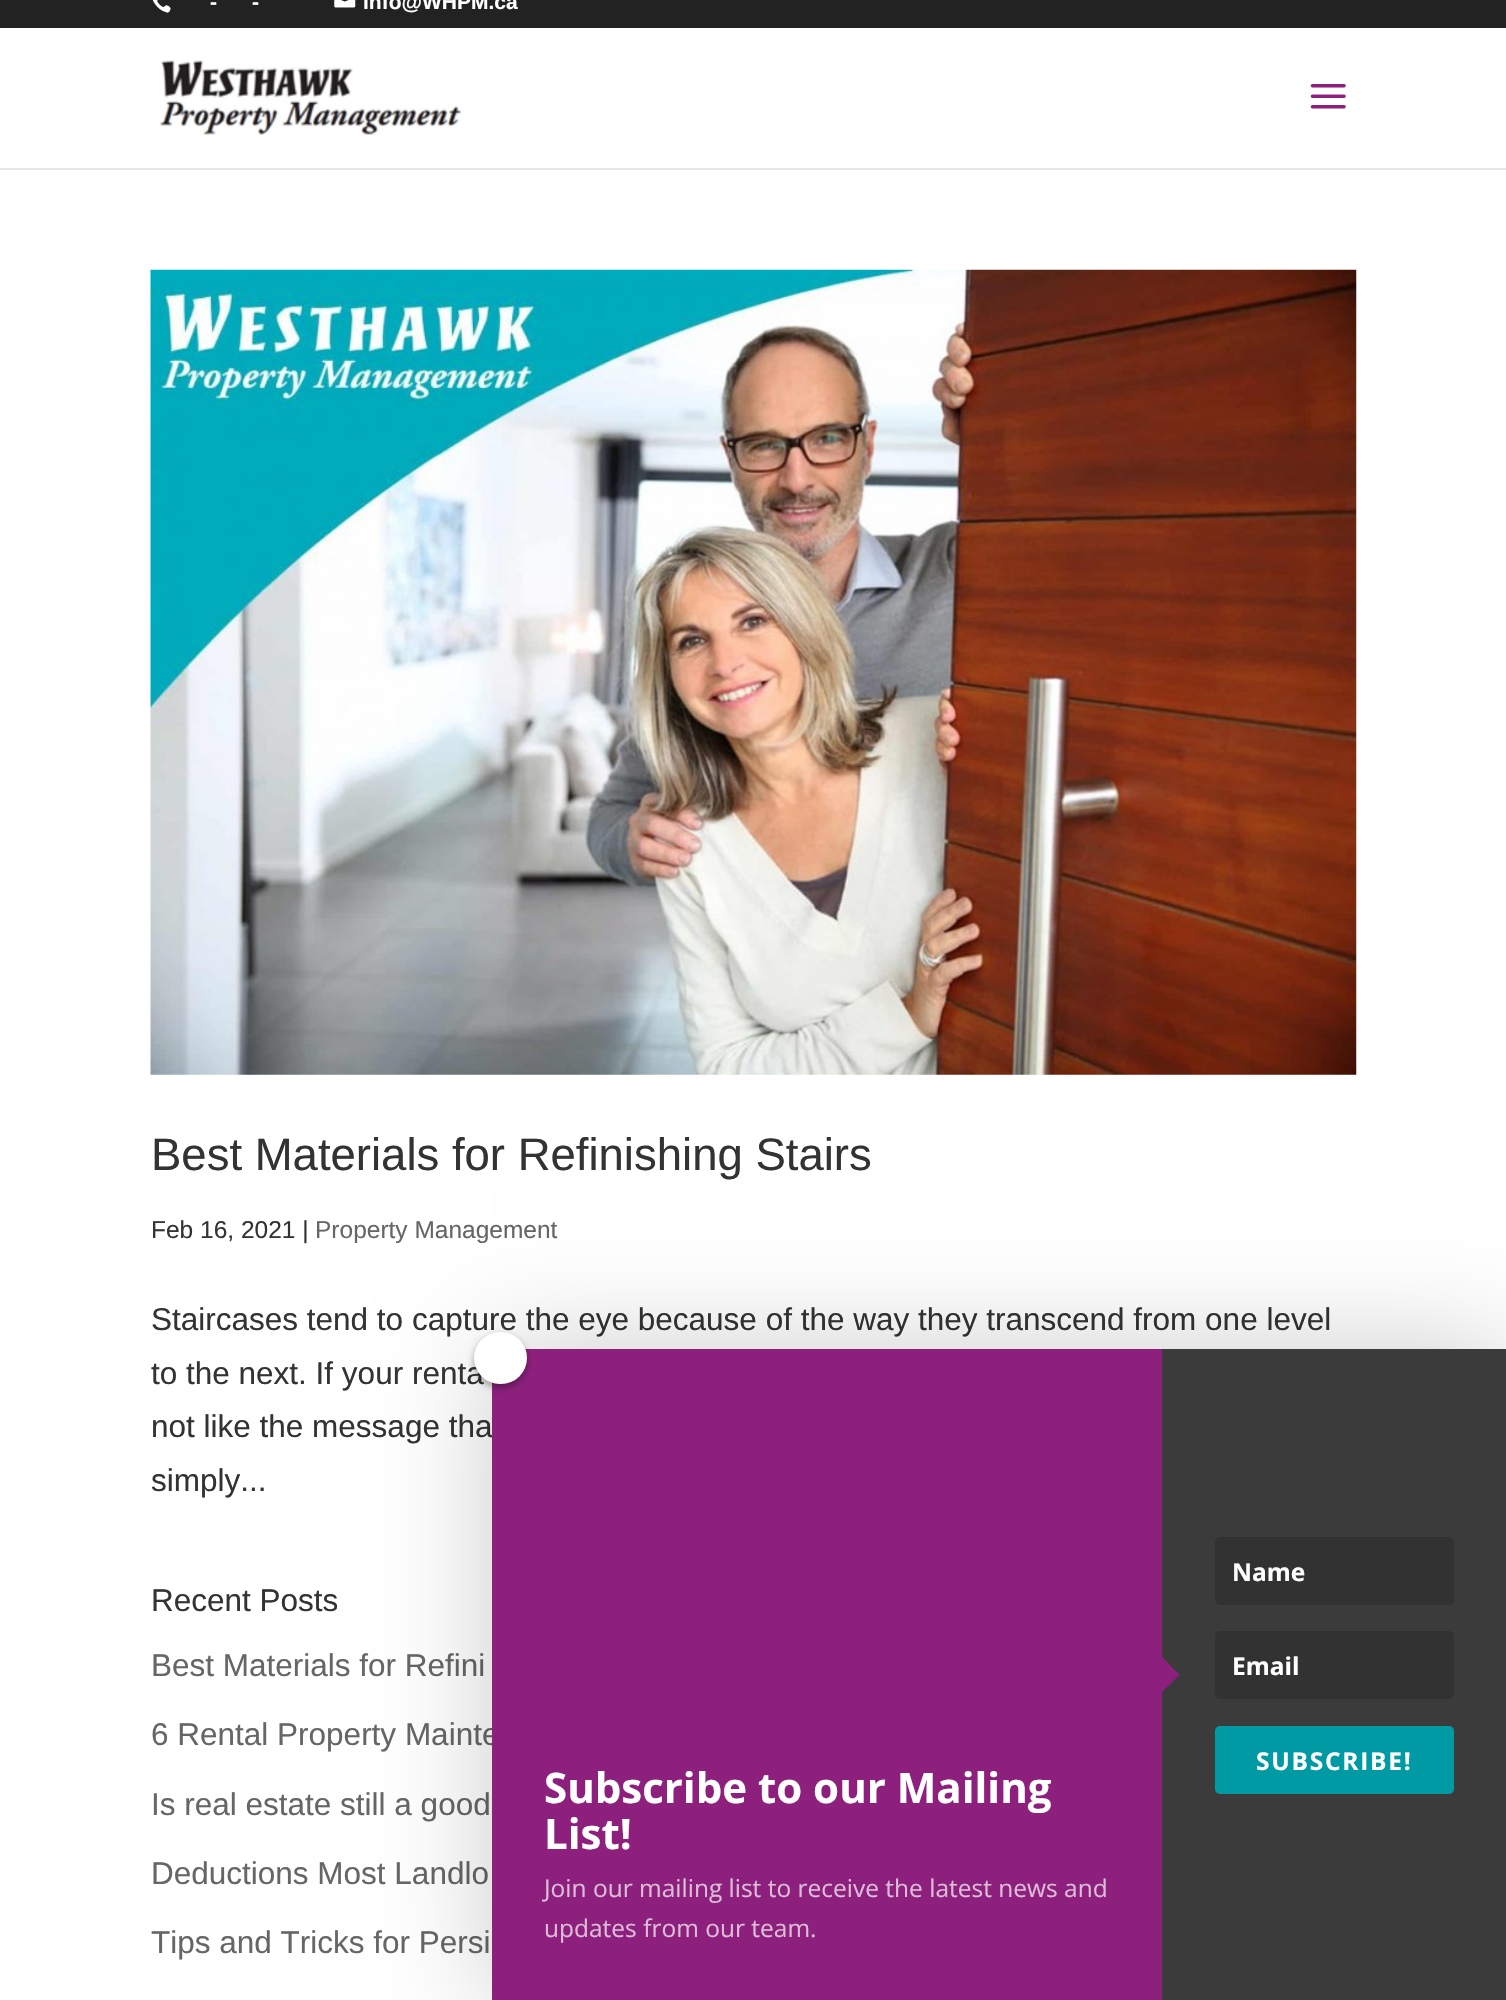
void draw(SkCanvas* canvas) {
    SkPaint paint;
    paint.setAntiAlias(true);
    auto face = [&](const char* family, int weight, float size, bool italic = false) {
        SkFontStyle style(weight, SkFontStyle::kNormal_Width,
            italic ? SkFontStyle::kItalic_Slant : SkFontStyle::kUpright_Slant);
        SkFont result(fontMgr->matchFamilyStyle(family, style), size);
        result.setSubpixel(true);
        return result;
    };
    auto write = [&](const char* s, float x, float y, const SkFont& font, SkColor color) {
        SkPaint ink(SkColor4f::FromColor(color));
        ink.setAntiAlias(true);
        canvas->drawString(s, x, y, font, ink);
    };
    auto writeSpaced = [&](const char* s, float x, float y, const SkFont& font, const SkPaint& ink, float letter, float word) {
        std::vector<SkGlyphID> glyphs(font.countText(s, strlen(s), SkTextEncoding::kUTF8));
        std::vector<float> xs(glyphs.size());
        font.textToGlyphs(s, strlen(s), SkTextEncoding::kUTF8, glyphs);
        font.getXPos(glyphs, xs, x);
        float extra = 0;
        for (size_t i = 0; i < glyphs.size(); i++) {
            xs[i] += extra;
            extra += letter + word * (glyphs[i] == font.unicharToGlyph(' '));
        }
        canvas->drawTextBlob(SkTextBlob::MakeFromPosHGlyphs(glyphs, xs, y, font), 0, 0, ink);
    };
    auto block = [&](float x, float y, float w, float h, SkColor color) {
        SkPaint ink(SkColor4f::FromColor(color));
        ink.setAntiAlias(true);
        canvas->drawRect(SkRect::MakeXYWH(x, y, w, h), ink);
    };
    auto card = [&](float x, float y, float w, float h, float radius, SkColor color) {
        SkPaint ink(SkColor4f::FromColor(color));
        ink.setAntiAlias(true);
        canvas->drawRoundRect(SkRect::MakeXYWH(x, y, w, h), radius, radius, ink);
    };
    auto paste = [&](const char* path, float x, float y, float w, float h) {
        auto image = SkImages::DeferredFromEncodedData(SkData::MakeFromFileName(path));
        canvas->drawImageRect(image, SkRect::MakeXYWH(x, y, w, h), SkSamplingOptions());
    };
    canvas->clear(SK_ColorWHITE);
    block(0, 0, 1506, 28, SkColorSetRGB(34, 34, 34));
    paste("pic1.png", 152, 0, 19, 13);
    auto kFont1 = face("Liberation Sans", 700, 21);
    write("-", 210, 9, kFont1, SK_ColorWHITE);
    write("-", 252, 9, kFont1, SK_ColorWHITE);
    paste("pic2.png", 334, 0, 22, 8);
    write("info@WHPM.ca", 363, 9, kFont1, SK_ColorWHITE);
    paint.setColor(SkColorSetRGB(230, 230, 230));
    canvas->drawPath(SkPathBuilder().moveTo(0, 168).lineTo(0, 170).lineTo(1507, 170).lineTo(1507, 30).lineTo(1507, 168).close().detach(), paint);
    paste("pic3.png", 159, 60, 303, 75);
    paste("pic4.png", 1310, 84, 36, 25);
    paste("pic5.png", 150, 269, 1207, 806);
    auto kFont2 = face("Liberation Sans", 400, 45.5f);
    write("Best Materials for Refinishing Stairs", 151, 1170, kFont2, SkColorSetRGB(51, 51, 51));
    auto kFont3 = face("Liberation Sans", 400, 24.5f);
    write("Feb 16, 2021 |", 151, 1238, kFont3, SkColorSetRGB(51, 51, 51));
    write("Property Management", 315, 1238, kFont3, SkColorSetRGB(102, 102, 102));
    auto kFont4 = face("Liberation Sans", 400, 31.5f);
    write("Staircases tend to capture the eye because of the way they transcend from one level", 151, 1330, kFont4, SkColorSetRGB(51, 51, 51));
    write("to the next. If your renta", 151, 1384, kFont4, SkColorSetRGB(51, 51, 51));
    write("not like the message tha", 151, 1437, kFont4, SkColorSetRGB(51, 51, 51));
    write("simply...", 151, 1491, kFont4, SkColorSetRGB(51, 51, 51));
    write("Recent Posts", 151, 1611, kFont4, SkColorSetRGB(51, 51, 51));
    write("Best Materials for Refini", 151, 1676, kFont4, SkColorSetRGB(102, 102, 102));
    write("6 Rental Property Mainte", 151, 1745, kFont4, SkColorSetRGB(102, 102, 102));
    write("Is real estate still a good", 151, 1815, kFont4, SkColorSetRGB(102, 102, 102));
    write("Deductions Most Landlo", 151, 1884, kFont4, SkColorSetRGB(102, 102, 102));
    write("Tips and Tricks for Persi", 151, 1953, kFont4, SkColorSetRGB(102, 102, 102));
    paint.setColor(SkColorSetARGB(51, 0, 0, 0));
    paint.setMaskFilter(SkMaskFilter::MakeBlur(kNormal_SkBlurStyle, 52.5f));
    canvas->drawRect(SkRect::MakeXYWH(492, 1349, 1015, 651), paint);
    paint.setMaskFilter(nullptr);
    block(492, 1349, 670, 651, SkColorSetRGB(141, 32, 125));
    paint.setColor(SkColorSetARGB(87, 0, 0, 0));
    paint.setMaskFilter(SkMaskFilter::MakeBlur(kNormal_SkBlurStyle, 3.5f));
    canvas->drawRoundRect(SkRect::MakeXYWH(474, 1335, 53, 53), 26.5f, 26.5f, paint);
    paint.setMaskFilter(nullptr);
    card(474, 1332, 53, 52, 26, SK_ColorWHITE);
    block(1162, 1349, 344, 651, SkColorSetRGB(59, 59, 59));
    paint.setColor(SkColorSetRGB(141, 32, 125));
    canvas->drawPath(SkPathBuilder().moveTo(1162, 1692).lineTo(1162, 1657).lineTo(1179.5f, 1675).close().detach(), paint);
    card(1215, 1537, 239, 68, 5, SkColorSetRGB(50, 50, 50));
    auto kFont5 = face("Open Sans", 700, 24.5f);
    write("Name", 1232, 1581, kFont5, SK_ColorWHITE);
    card(1215, 1631, 239, 68, 5, SkColorSetRGB(50, 50, 50));
    write("Email", 1232, 1675, kFont5, SK_ColorWHITE);
    card(1215, 1726, 239, 68, 5, SkColorSetRGB(0, 154, 164));
    paint.setColor(SK_ColorWHITE);
    writeSpaced("SUBSCRIBE!", 1256, 1770, kFont5, paint, 1.75f, 0);
    auto kFont6 = face("Open Sans", 700, 42);
    write("Subscribe to our Mailing", 544, 1803, kFont6, SK_ColorWHITE);
    write("List!", 544, 1849, kFont6, SK_ColorWHITE);
    auto kFont7 = face("Open Sans", 400, 24.5f);
    write("Join our mailing list to receive the latest news and", 544, 1897, kFont7, SkColorSetRGB(221, 188, 216));
    write("updates from our team.", 544, 1937, kFont7, SkColorSetRGB(221, 188, 216));
}
